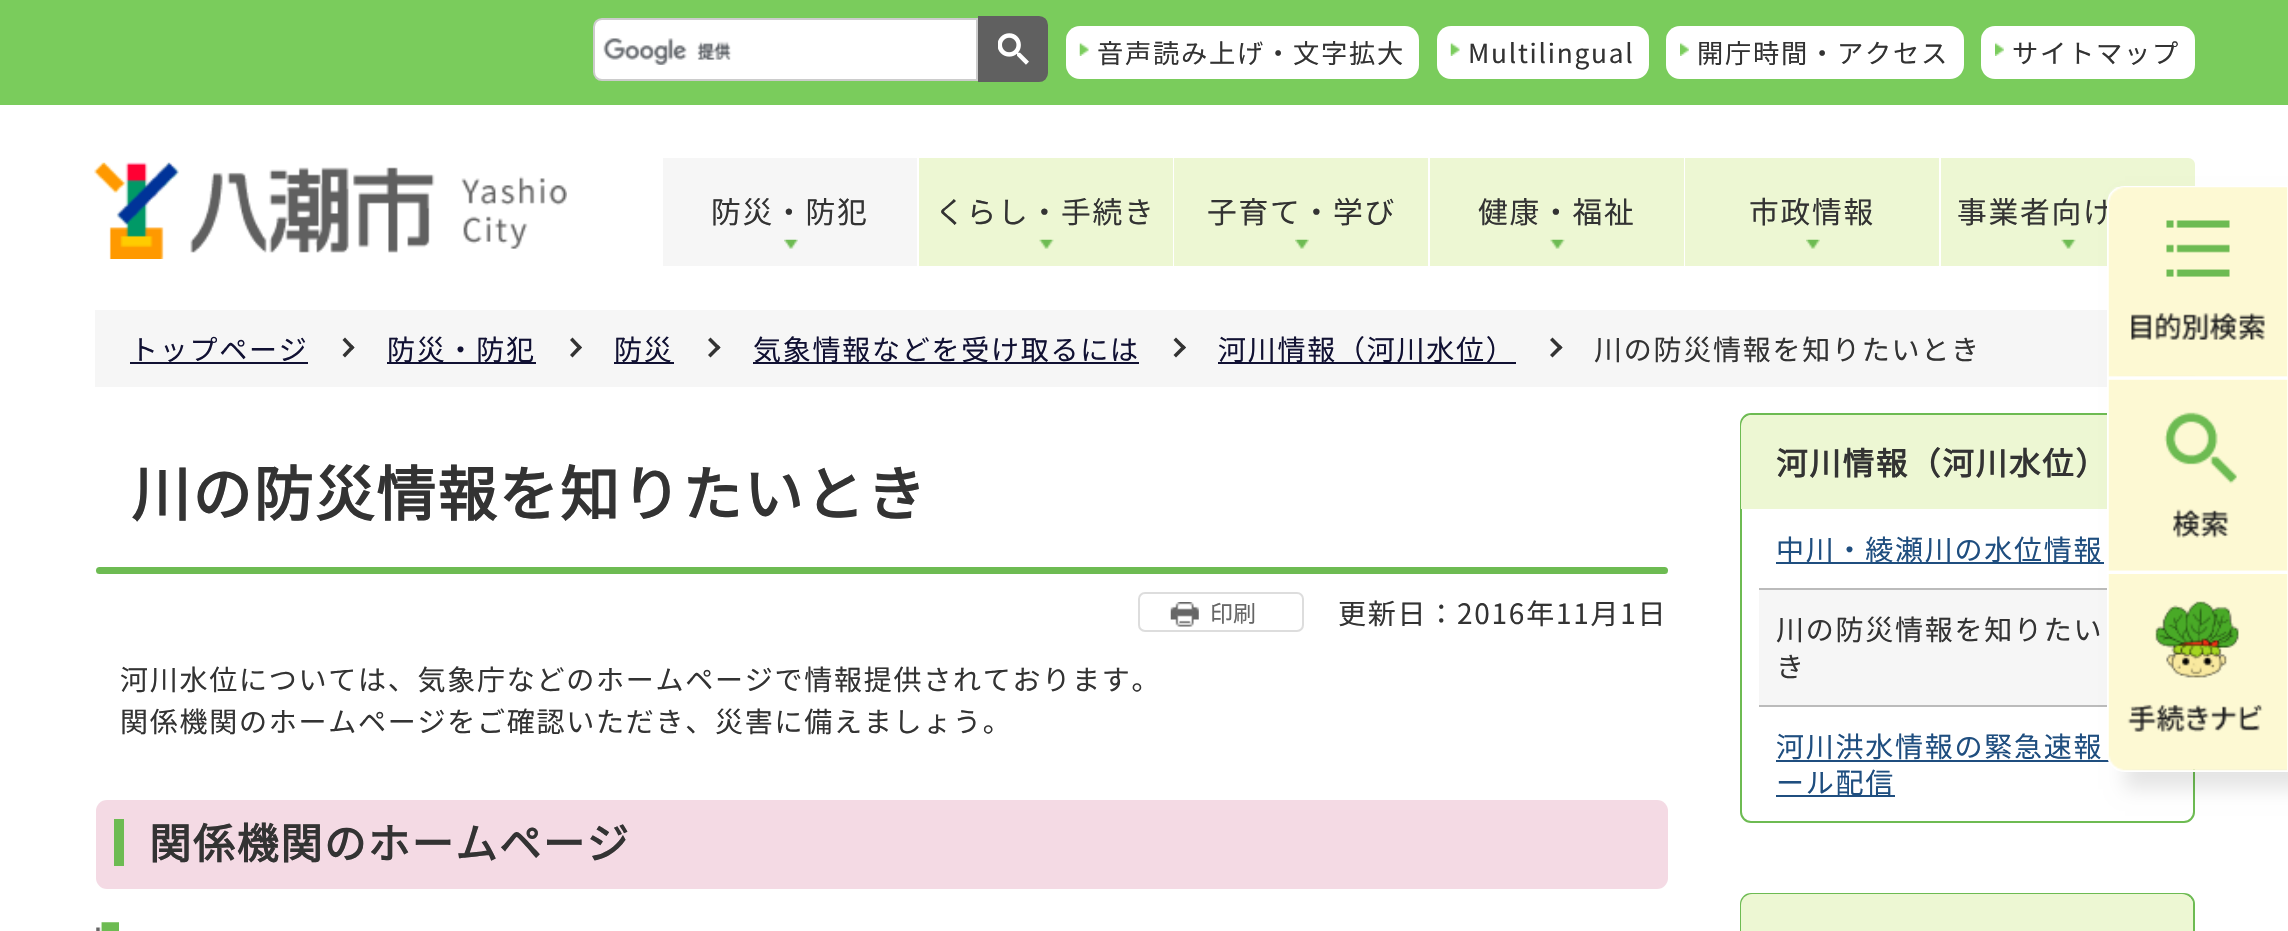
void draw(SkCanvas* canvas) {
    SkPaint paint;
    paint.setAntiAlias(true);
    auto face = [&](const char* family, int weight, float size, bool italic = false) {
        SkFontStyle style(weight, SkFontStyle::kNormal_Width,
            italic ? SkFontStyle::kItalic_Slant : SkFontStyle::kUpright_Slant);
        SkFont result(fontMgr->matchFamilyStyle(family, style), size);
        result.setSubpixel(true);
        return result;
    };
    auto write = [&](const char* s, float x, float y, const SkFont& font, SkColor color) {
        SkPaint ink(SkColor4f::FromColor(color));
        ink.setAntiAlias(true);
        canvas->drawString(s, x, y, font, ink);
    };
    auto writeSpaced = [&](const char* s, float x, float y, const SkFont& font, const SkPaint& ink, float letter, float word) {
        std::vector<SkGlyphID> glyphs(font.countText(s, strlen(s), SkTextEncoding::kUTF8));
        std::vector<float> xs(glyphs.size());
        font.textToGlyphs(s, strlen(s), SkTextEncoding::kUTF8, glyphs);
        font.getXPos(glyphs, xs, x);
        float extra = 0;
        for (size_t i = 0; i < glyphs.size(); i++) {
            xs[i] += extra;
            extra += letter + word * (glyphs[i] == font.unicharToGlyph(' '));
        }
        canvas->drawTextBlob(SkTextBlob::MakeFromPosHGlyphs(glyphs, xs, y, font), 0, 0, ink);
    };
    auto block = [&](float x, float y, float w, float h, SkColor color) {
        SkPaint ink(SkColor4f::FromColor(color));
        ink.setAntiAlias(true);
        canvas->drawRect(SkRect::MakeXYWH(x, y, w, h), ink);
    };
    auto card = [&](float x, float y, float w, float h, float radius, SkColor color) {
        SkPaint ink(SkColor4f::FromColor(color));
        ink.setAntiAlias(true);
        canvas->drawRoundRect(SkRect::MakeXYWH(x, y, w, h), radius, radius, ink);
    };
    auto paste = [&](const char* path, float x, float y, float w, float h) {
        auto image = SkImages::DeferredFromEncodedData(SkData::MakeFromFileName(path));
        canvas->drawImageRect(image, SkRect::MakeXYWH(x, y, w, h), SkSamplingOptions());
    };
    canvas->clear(SK_ColorWHITE);
    block(0, 0, 2288, 105, SkColorSetRGB(122, 204, 92));
    paint.setColor(SK_ColorWHITE);
    canvas->drawPath(SkPathBuilder().moveTo(602, 19).lineTo(977, 19).lineTo(977, 80).lineTo(602, 80).cubicTo(597.5f, 80, 594, 76.5f, 594, 72).lineTo(594, 27).cubicTo(594, 22.5f, 597.5f, 19, 602, 19).close().detach(), paint);
    paint.setStyle(SkPaint::kStroke_Style);
    paint.setStrokeWidth(2);
    paint.setColor(SkColorSetRGB(204, 204, 204));
    canvas->drawPath(SkPathBuilder().moveTo(602, 19).lineTo(977, 19).lineTo(977, 80).lineTo(602, 80).cubicTo(597.5f, 80, 594, 76.5f, 594, 72).lineTo(594, 27).cubicTo(594, 22.5f, 597.5f, 19, 602, 19).close().detach(), paint);
    paste("pic1.png", 603, 38, 129, 27);
    paint.setStyle(SkPaint::kFill_Style);
    paint.setColor(SkColorSetRGB(96, 96, 96));
    canvas->drawPath(SkPathBuilder().moveTo(979, 17).lineTo(1039, 17).cubicTo(1043.5f, 17, 1047, 20.5f, 1047, 25).lineTo(1047, 73).cubicTo(1047, 77.5f, 1043.5f, 81, 1039, 81).lineTo(979, 81).close().detach(), paint);
    paint.setStyle(SkPaint::kStroke_Style);
    canvas->drawPath(SkPathBuilder().moveTo(979, 17).lineTo(1039, 17).cubicTo(1043.5f, 17, 1047, 20.5f, 1047, 25).lineTo(1047, 73).cubicTo(1047, 77.5f, 1043.5f, 81, 1039, 81).lineTo(979, 81).close().detach(), paint);
    paste("pic2.png", 998, 33, 31, 32);
    card(1066, 26, 353, 53, 14, SK_ColorWHITE);
    paste("pic3.png", 1079, 42, 10, 14);
    auto kFont1 = face("Noto Sans JP", 100, 26.25f);
    paint.setStyle(SkPaint::kFill_Style);
    paint.setColor(SkColorSetRGB(51, 51, 51));
    writeSpaced("音声読み上げ・文字拡大", 1097, 63, kFont1, paint, 1.75f, 0);
    card(1437, 26, 212, 53, 14, SK_ColorWHITE);
    paste("pic3.png", 1450, 42, 10, 14);
    writeSpaced("Multilingual", 1468, 63, kFont1, paint, 1.75f, 0);
    card(1666, 26, 298, 53, 14, SK_ColorWHITE);
    paste("pic4.png", 1680, 42, 9, 14);
    writeSpaced("開庁時間・アクセス", 1697, 63, kFont1, paint, 1.75f, 0);
    card(1981, 26, 214, 53, 14, SK_ColorWHITE);
    paste("pic4.png", 1995, 42, 9, 14);
    writeSpaced("サイトマップ", 2012, 63, kFont1, paint, 1.75f, 0);
    paste("pic5.png", 94, 162, 473, 97);
    block(663, 158, 254, 108, SkColorSetRGB(246, 246, 246));
    auto kFont2 = face("Noto Sans JP", 100, 29.75f);
    writeSpaced("防災・防犯", 711, 223, kFont2, paint, 1.75f, 0);
    paste("pic6.png", 784, 239, 14, 10);
    block(919, 158, 254, 108, SkColorSetRGB(237, 247, 211));
    writeSpaced("くらし・手続き", 935, 223, kFont2, paint, 1.75f, 0);
    paste("pic7.png", 1039, 239, 15, 10);
    block(1174, 158, 254, 108, SkColorSetRGB(237, 247, 211));
    writeSpaced("子育て・学び", 1207, 223, kFont2, paint, 1.75f, 0);
    paste("pic8.png", 1295, 239, 14, 10);
    block(1430, 158, 254, 108, SkColorSetRGB(237, 247, 211));
    writeSpaced("健康・福祉", 1478, 223, kFont2, paint, 1.75f, 0);
    paste("pic7.png", 1550, 239, 15, 10);
    block(1685, 158, 254, 108, SkColorSetRGB(237, 247, 211));
    writeSpaced("市政情報", 1749, 223, kFont2, paint, 1.75f, 0);
    paste("pic9.png", 1806, 239, 14, 10);
    paint.setColor(SkColorSetRGB(237, 247, 211));
    canvas->drawPath(SkPathBuilder().moveTo(1941, 158).lineTo(2188, 158).cubicTo(2192, 158, 2195, 161, 2195, 165).lineTo(2195, 259).cubicTo(2195, 263, 2192, 266, 2188, 266).lineTo(1941, 266).close().detach(), paint);
    paint.setColor(SkColorSetRGB(51, 51, 51));
    writeSpaced("事業者向け", 1957, 223, kFont2, paint, 1.75f, 0);
    paste("pic10.png", 2061, 239, 15, 10);
    block(95, 310, 2100, 77, SkColorSetRGB(246, 246, 246));
    paint.setStyle(SkPaint::kStroke_Style);
    paint.setColor(SkColorSetRGB(109, 187, 82));
    canvas->drawRoundRect(SkRect::MakeXYWH(1741, 414, 453, 408), 10, 10, paint);
    paint.setStyle(SkPaint::kFill_Style);
    paint.setColor(SkColorSetRGB(237, 247, 211));
    canvas->drawPath(SkPathBuilder().moveTo(1752, 415).lineTo(2182, 415).cubicTo(2188, 415, 2193, 420, 2193, 426).lineTo(2193, 509).lineTo(1741, 509).lineTo(1741, 426).cubicTo(1741, 420, 1746, 415, 1752, 415).close().detach(), paint);
    block(1759, 588, 348, 2, SkColorSetRGB(187, 187, 187));
    block(1776, 562, 328, 2, SkColorSetRGB(31, 78, 127));
    block(1759, 705, 348, 2, SkColorSetRGB(187, 187, 187));
    block(1759, 590, 348, 115, SkColorSetRGB(246, 246, 246));
    block(1776, 760, 335, 2, SkColorSetRGB(31, 78, 127));
    paint.setColor(SkColorSetARGB(26, 0, 0, 0));
    paint.setMaskFilter(SkMaskFilter::MakeBlur(kNormal_SkBlurStyle, 9));
    canvas->drawRect(SkRect::MakeXYWH(2125, 203, 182, 586), paint);
    paint.setMaskFilter(nullptr);
    paint.setStyle(SkPaint::kStroke_Style);
    paint.setColor(SK_ColorWHITE);
    canvas->drawPath(SkPathBuilder().moveTo(2125, 187).lineTo(2288, 187).lineTo(2288, 377).lineTo(2108, 377).lineTo(2108, 204).cubicTo(2108, 194.5f, 2115.5f, 187, 2125, 187).close().detach(), paint);
    paste("pic11.png", 2108, 187, 180, 190);
    canvas->drawRect(SkRect::MakeXYWH(2108, 379, 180, 192), paint);
    paste("pic12.png", 2108, 379, 180, 192);
    canvas->drawPath(SkPathBuilder().moveTo(2108, 573).lineTo(2288, 573).lineTo(2288, 771).lineTo(2125, 771).cubicTo(2115.5f, 771, 2108, 763.5f, 2108, 754).close().detach(), paint);
    paste("pic13.png", 2108, 574, 180, 197);
    block(130, 362, 178, 2, SkColorSetRGB(17, 17, 51));
    auto kFont3 = face("Noto Sans JP", 100, 28);
    paint.setStyle(SkPaint::kFill_Style);
    paint.setColor(SkColorSetRGB(17, 17, 51));
    writeSpaced("トップページ", 130, 360, kFont3, paint, 1.75f, 0);
    paint.setColor(SkColorSetRGB(51, 51, 51));
    canvas->drawPath(SkPathBuilder().moveTo(345, 337.5f).lineTo(354.5f, 347.5f).lineTo(352, 350).lineTo(342.5f, 340).close().detach(), paint);
    canvas->drawPath(SkPathBuilder().moveTo(352, 345).lineTo(354.5f, 347.5f).lineTo(345, 357.5f).lineTo(342.5f, 355).close().detach(), paint);
    block(387, 362, 149, 2, SkColorSetRGB(17, 17, 51));
    paint.setColor(SkColorSetRGB(17, 17, 51));
    writeSpaced("防災・防犯", 387, 360, kFont3, paint, 1.75f, 0);
    paint.setColor(SkColorSetRGB(51, 51, 51));
    canvas->drawPath(SkPathBuilder().moveTo(572.5f, 337.5f).lineTo(582, 347.5f).lineTo(579.5f, 350).lineTo(570, 340).close().detach(), paint);
    canvas->drawPath(SkPathBuilder().moveTo(579.5f, 345).lineTo(582, 347.5f).lineTo(572.5f, 357.5f).lineTo(570, 355).close().detach(), paint);
    block(614, 362, 60, 2, SkColorSetRGB(17, 17, 51));
    paint.setColor(SkColorSetRGB(17, 17, 51));
    writeSpaced("防災", 614, 360, kFont3, paint, 1.75f, 0);
    paint.setColor(SkColorSetRGB(51, 51, 51));
    canvas->drawPath(SkPathBuilder().moveTo(710.5f, 337.5f).lineTo(720.5f, 347.5f).lineTo(718, 350).lineTo(708, 340).close().detach(), paint);
    canvas->drawPath(SkPathBuilder().moveTo(718, 345).lineTo(720.5f, 347.5f).lineTo(710.5f, 357.5f).lineTo(708, 355).close().detach(), paint);
    block(753, 362, 386, 2, SkColorSetRGB(17, 17, 51));
    paint.setColor(SkColorSetRGB(17, 17, 51));
    writeSpaced("気象情報などを受け取るには", 753, 360, kFont3, paint, 1.75f, 0);
    paint.setColor(SkColorSetRGB(51, 51, 51));
    canvas->drawPath(SkPathBuilder().moveTo(1176, 337.5f).lineTo(1186, 347.5f).lineTo(1183.5f, 350).lineTo(1173.5f, 340).close().detach(), paint);
    canvas->drawPath(SkPathBuilder().moveTo(1183.5f, 345).lineTo(1186, 347.5f).lineTo(1176, 357.5f).lineTo(1173.5f, 355).close().detach(), paint);
    block(1218, 362, 298, 2, SkColorSetRGB(17, 17, 51));
    paint.setColor(SkColorSetRGB(17, 17, 51));
    writeSpaced("河川情報（河川水位）", 1218, 360, kFont3, paint, 1.75f, 0);
    paint.setColor(SkColorSetRGB(51, 51, 51));
    canvas->drawPath(SkPathBuilder().moveTo(1552.5f, 337.5f).lineTo(1562.5f, 347.5f).lineTo(1560, 350).lineTo(1550, 340).close().detach(), paint);
    canvas->drawPath(SkPathBuilder().moveTo(1560, 345).lineTo(1562.5f, 347.5f).lineTo(1552.5f, 357.5f).lineTo(1550, 355).close().detach(), paint);
    writeSpaced("川の防災情報を知りたいとき", 1594, 360, kFont3, paint, 1.75f, 0);
    auto kFont4 = face("Noto Sans JP", 700, 59.5f);
    writeSpaced("川の防災情報を知りたいとき", 131, 516, kFont4, paint, 1.75f, 0);
    card(96, 567, 1572, 7, 3.5f, SkColorSetRGB(109, 187, 82));
    paste("pic14.png", 1170, 602, 29, 25);
    paint.setStyle(SkPaint::kStroke_Style);
    paint.setColor(SkColorSetRGB(221, 221, 221));
    canvas->drawRoundRect(SkRect::MakeXYWH(1139, 593, 164, 38), 6, 6, paint);
    auto kFont5 = face("Noto Sans JP", 100, 23);
    write("印刷", 1210, 622, kFont5, SkColorSetRGB(102, 102, 102));
    paint.setStyle(SkPaint::kFill_Style);
    paint.setColor(SkColorSetRGB(51, 51, 51));
    writeSpaced("更新日：2016年11月1日", 1338, 624, kFont3, paint, 1.75f, 0);
    writeSpaced("河川水位については、気象庁などのホームページで情報提供されております。", 120, 690, kFont3, paint, 1.75f, 0);
    writeSpaced("関係機関のホームページをご確認いただき、災害に備えましょう。", 120, 732, kFont3, paint, 1.75f, 0);
    card(96, 800, 1572, 89, 11, SkColorSetRGB(244, 218, 228));
    block(114, 819, 10, 47, SkColorSetRGB(109, 187, 82));
    auto kFont6 = face("Noto Sans JP", 700, 42);
    writeSpaced("関係機関のホームページ", 149, 859, kFont6, paint, 1.75f, 0);
    paste("pic15.png", 96, 922, 23, 9);
    auto kFont7 = face("Noto Sans JP", 700, 31.5f);
    writeSpaced("河川情報（河川水位）", 1776, 475, kFont7, paint, 1.75f, 0);
    paint.setColor(SkColorSetRGB(31, 78, 127));
    writeSpaced("中川・綾瀬川の水位情報", 1776, 560, kFont3, paint, 1.75f, 0);
    paint.setColor(SkColorSetRGB(51, 51, 51));
    writeSpaced("川の防災情報を知りたい", 1776, 640, kFont3, paint, 1.75f, 0);
    writeSpaced("き", 1776, 677, kFont3, paint, 1.75f, 0);
    paint.setColor(SkColorSetRGB(31, 78, 127));
    writeSpaced("河川洪水情報の緊急速報", 1776, 757, kFont3, paint, 1.75f, 0);
    block(1776, 795, 119, 2, SkColorSetRGB(31, 78, 127));
    writeSpaced("ール配信", 1776, 793, kFont3, paint, 1.75f, 0);
    paint.setStyle(SkPaint::kStroke_Style);
    paint.setColor(SkColorSetRGB(109, 187, 82));
    canvas->drawRoundRect(SkRect::MakeXYWH(1741, 894, 453, 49), 10, 10, paint);
    paint.setStyle(SkPaint::kFill_Style);
    paint.setColor(SkColorSetRGB(237, 247, 211));
    canvas->drawPath(SkPathBuilder().moveTo(1752, 894).lineTo(2182, 894).cubicTo(2188, 894, 2193, 899, 2193, 905).lineTo(2193, 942).lineTo(1741, 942).lineTo(1741, 905).cubicTo(1741, 899, 1746, 894, 1752, 894).close().detach(), paint);
}
